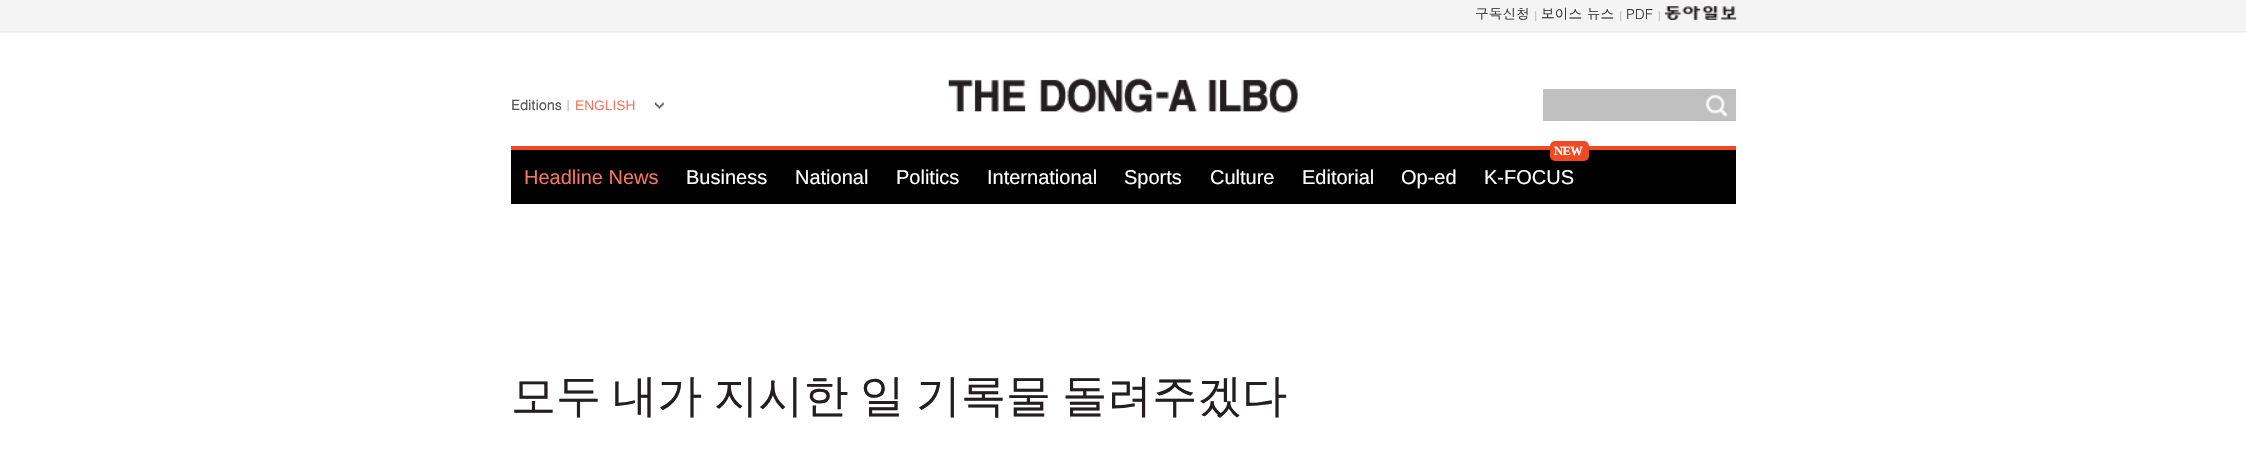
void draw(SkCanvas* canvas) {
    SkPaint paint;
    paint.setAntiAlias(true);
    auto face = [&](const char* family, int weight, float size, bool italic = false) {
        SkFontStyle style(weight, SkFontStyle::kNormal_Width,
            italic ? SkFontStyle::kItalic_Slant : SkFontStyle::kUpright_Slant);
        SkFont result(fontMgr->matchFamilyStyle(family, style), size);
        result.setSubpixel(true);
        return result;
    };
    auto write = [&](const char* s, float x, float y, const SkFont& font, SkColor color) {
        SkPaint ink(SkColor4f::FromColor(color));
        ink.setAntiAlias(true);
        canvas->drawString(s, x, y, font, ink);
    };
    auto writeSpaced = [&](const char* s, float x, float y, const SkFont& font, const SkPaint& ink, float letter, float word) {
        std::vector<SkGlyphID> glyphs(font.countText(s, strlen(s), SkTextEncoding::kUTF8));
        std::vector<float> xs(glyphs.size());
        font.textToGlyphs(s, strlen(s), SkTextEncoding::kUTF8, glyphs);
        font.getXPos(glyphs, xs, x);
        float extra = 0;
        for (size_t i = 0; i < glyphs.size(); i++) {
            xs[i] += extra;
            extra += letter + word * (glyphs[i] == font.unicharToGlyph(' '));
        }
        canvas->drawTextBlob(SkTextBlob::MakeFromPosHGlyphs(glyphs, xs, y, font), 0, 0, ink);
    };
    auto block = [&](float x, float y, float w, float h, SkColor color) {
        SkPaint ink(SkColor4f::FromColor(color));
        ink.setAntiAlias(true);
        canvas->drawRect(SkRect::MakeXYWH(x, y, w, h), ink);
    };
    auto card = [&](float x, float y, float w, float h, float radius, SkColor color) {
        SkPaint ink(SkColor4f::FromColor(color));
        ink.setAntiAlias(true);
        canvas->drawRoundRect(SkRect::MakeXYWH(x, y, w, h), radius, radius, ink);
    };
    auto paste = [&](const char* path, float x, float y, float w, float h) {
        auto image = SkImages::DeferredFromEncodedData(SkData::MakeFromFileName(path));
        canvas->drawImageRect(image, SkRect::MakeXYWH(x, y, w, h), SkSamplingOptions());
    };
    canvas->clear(SK_ColorWHITE);
    block(0, 0, 2246, 33, SkColorSetRGB(244, 244, 244));
    block(0, 31, 2246, 1, SkColorSetRGB(238, 238, 238));
    paste("pic1.png", 1535, 11, 2, 11);
    auto kFont1 = face("Dotum", 400, 13.75f);
    write("구독신청", 1475, 19, kFont1, SkColorSetRGB(51, 51, 51));
    paste("pic1.png", 1620, 11, 2, 11);
    write("보이스 뉴스", 1541, 19, kFont1, SkColorSetRGB(51, 51, 51));
    paste("pic2.png", 1658, 11, 2, 11);
    write("PDF", 1626, 19, kFont1, SkColorSetRGB(51, 51, 51));
    paste("pic3.png", 1665, 6, 72, 14);
    paste("pic4.png", 567, 100, 2, 12);
    auto kFont2 = face("Dotum", 700, 13.75f);
    write("Editions", 511, 110, kFont2, SkColorSetRGB(87, 87, 87));
    paste("pic5.png", 655, 102, 9, 7);
    auto kFont3 = face("Liberation Sans", 400, 13.75f);
    write("ENGLISH", 575, 110, kFont3, SkColorSetRGB(247, 118, 96));
    paste("pic6.png", 948, 78, 350, 35);
    block(1543, 89, 154, 32, SkColorSetRGB(192, 192, 192));
    paste("pic7.png", 1697, 88, 40, 34);
    block(511, 150, 1225, 54, SK_ColorBLACK);
    block(511, 146, 1225, 4, SkColorSetRGB(239, 74, 36));
    auto kFont4 = face("Liberation Sans", 400, 20);
    write("Headline News", 524, 184, kFont4, SkColorSetRGB(247, 118, 96));
    write("Business", 686, 184, kFont4, SK_ColorWHITE);
    write("National", 795, 184, kFont4, SK_ColorWHITE);
    write("Politics", 896, 184, kFont4, SK_ColorWHITE);
    write("International", 987, 184, kFont4, SK_ColorWHITE);
    write("Sports", 1124, 184, kFont4, SK_ColorWHITE);
    write("Culture", 1210, 184, kFont4, SK_ColorWHITE);
    write("Editorial", 1302, 184, kFont4, SK_ColorWHITE);
    write("Op-ed", 1401, 184, kFont4, SK_ColorWHITE);
    card(1550, 141, 39, 20, 5, SkColorSetRGB(239, 74, 36));
    auto kFont5 = face("Liberation Serif", 700, 12.5f);
    paint.setColor(SK_ColorWHITE);
    writeSpaced("NEW", 1554, 155, kFont5, paint, -0.5f, 0);
    write("K-FOCUS", 1484, 184, kFont4, SK_ColorWHITE);
    auto kFont6 = face("WenQuanYi Zen Hei", 500, 45);
    paint.setColor(SkColorSetRGB(35, 31, 32));
    writeSpaced("모두 내가 지시한 일 기록물 돌려주겠다", 511, 411, kFont6, paint, 0, -2.25f);
}
